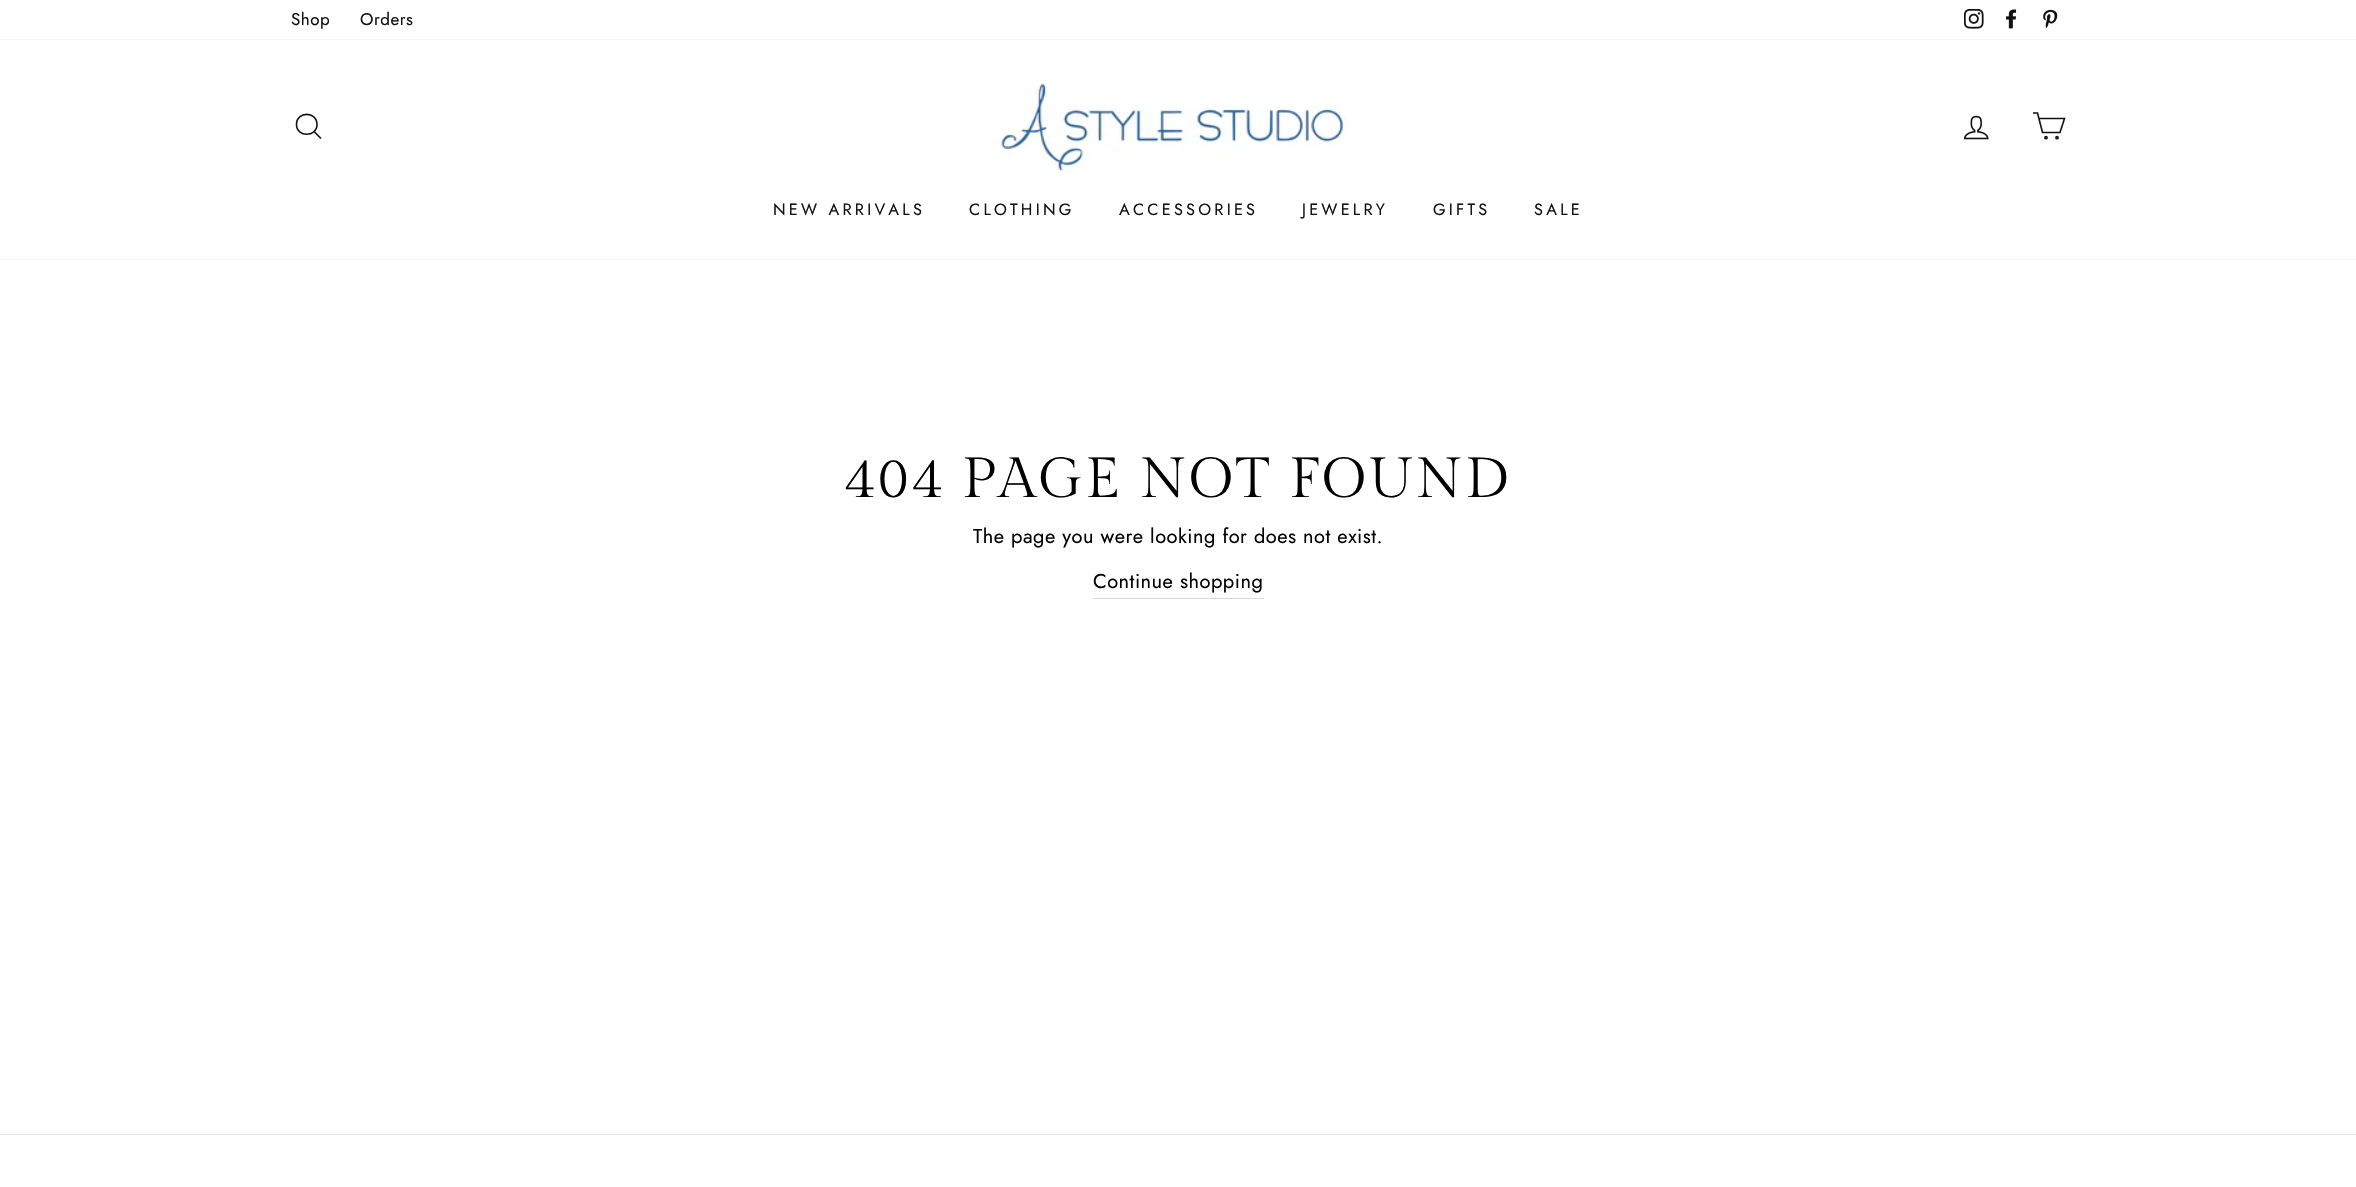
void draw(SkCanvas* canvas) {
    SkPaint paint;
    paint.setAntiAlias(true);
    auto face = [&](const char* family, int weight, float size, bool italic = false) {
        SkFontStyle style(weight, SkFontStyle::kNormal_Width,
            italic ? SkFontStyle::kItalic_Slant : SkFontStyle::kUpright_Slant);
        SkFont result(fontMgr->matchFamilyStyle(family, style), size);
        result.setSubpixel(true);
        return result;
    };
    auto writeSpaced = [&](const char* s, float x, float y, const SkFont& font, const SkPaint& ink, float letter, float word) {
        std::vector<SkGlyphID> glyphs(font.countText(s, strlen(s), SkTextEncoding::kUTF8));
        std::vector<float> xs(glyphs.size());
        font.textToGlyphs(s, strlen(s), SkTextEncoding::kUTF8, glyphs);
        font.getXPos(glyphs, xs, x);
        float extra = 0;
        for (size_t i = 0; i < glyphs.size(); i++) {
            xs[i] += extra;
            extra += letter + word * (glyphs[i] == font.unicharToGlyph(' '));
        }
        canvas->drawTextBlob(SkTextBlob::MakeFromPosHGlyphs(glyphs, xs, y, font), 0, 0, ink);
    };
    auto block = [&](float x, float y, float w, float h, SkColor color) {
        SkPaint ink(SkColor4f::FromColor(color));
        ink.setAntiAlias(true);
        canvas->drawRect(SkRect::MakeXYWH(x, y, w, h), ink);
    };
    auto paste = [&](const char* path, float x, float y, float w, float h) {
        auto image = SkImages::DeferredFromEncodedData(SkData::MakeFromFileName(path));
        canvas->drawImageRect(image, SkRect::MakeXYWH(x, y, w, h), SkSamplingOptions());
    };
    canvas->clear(SK_ColorWHITE);
    auto kFont1 = face("Jost", 400, 17);
    paint.setColor(SkColorSetRGB(17, 17, 17));
    writeSpaced("Shop", 291, 25, kFont1, paint, 0.5f, 0);
    writeSpaced("Orders", 360, 25, kFont1, paint, 0.5f, 0);
    paste("pic1.png", 1964, 9, 20, 20);
    paste("pic2.png", 2006, 9, 11, 20);
    paste("pic3.png", 2043, 9, 15, 20);
    paint.setColor(SkColorSetARGB(51, 0, 0, 0));
    paint.setMaskFilter(SkMaskFilter::MakeBlur(kNormal_SkBlurStyle, 0.5f));
    canvas->drawRect(SkRect::MakeXYWH(0, 40, 2356, 219), paint);
    paint.setMaskFilter(nullptr);
    block(0, 40, 2356, 219, SK_ColorWHITE);
    paint.setStyle(SkPaint::kStroke_Style);
    paint.setStrokeWidth(1.6f);
    paint.setColor(SkColorSetRGB(17, 17, 17));
    canvas->drawPath(SkPathBuilder().moveTo(317, 124.5f).cubicTo(317, 137.5f, 296.5f, 137.5f, 296.5f, 124.5f).cubicTo(296.5f, 111, 317, 111, 317, 124.5f).close().moveTo(321, 138.5f).lineTo(314, 131.5f).detach(), paint);
    paste("pic4.png", 1000, 78, 348, 94);
    paste("pic5.png", 1964, 115, 25, 25);
    canvas->drawPath(SkPathBuilder().moveTo(2039, 118.5f).lineTo(2064.5f, 118.5f).lineTo(2060, 132.5f).lineTo(2042.5f, 132.5f).lineTo(2037.5f, 113).lineTo(2033, 113).detach(), paint);
    canvas->drawCircle(2046, 137.7f, 1.1f, paint);
    canvas->drawCircle(2057, 137.7f, 1.1f, paint);
    auto kFont2 = face("Jost", 400, 16.25f);
    paint.setStyle(SkPaint::kFill_Style);
    writeSpaced("NEW ARRIVALS", 773, 215, kFont2, paint, 3.25f, 0);
    writeSpaced("CLOTHING", 969, 215, kFont2, paint, 3.25f, 0);
    writeSpaced("ACCESSORIES", 1119, 215, kFont2, paint, 3.25f, 0);
    writeSpaced("JEWELRY", 1302, 215, kFont2, paint, 3.25f, 0);
    writeSpaced("GIFTS", 1433, 215, kFont2, paint, 3.25f, 0);
    writeSpaced("SALE", 1534, 215, kFont2, paint, 3.25f, 0);
    auto kFont3 = face("Gilda Display", 400, 56.25f);
    paint.setColor(SK_ColorBLACK);
    writeSpaced("404 PAGE NOT FOUND", 844, 497, kFont3, paint, 2.8f, 0);
    auto kFont4 = face("Jost", 400, 20);
    writeSpaced("The page you were looking for does not exist.", 973, 543, kFont4, paint, 0.5f, 0);
    block(1093, 598, 171, 1, SkColorSetRGB(217, 217, 217));
    writeSpaced("Continue shopping", 1093, 588, kFont4, paint, 0.5f, 0);
    block(0, 1134, 2356, 1, SkColorSetRGB(230, 230, 230));
}
